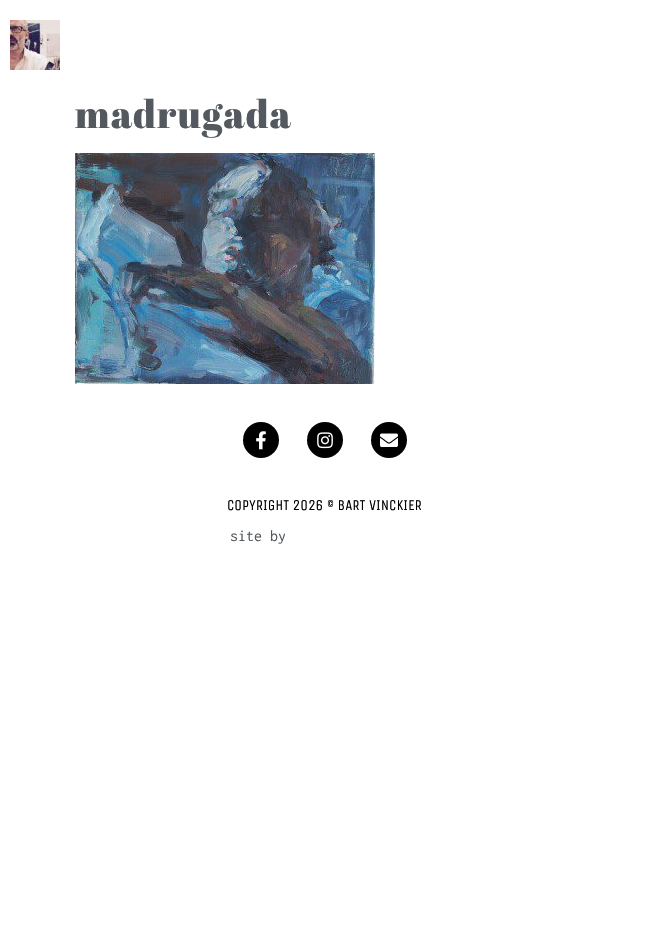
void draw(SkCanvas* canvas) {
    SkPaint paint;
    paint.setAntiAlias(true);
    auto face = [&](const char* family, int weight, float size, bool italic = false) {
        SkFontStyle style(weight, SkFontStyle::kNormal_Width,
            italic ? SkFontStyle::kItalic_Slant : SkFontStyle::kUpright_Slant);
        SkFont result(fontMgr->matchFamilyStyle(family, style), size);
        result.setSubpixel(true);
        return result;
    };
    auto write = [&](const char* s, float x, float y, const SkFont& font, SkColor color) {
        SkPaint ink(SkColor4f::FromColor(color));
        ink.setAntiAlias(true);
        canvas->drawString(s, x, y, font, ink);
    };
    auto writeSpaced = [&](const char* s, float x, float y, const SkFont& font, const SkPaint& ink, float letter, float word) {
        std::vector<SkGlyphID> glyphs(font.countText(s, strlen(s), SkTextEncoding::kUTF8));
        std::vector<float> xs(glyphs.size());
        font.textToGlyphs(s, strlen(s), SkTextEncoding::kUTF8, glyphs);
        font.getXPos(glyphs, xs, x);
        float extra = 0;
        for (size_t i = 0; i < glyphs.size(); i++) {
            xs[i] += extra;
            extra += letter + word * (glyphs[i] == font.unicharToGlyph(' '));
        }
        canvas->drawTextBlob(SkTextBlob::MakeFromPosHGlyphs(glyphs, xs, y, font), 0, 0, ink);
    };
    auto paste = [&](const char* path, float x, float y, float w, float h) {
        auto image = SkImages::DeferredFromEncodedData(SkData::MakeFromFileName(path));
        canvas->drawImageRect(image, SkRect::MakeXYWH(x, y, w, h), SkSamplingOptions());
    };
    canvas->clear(SK_ColorWHITE);
    paste("pic1.png", 10, 20, 50, 50);
    auto kFont1 = face("Abril Fatface", 400, 39);
    paint.setColor(SkColorSetRGB(84, 89, 95));
    writeSpaced("madrugada", 75, 128, kFont1, paint, 1, 0);
    paste("pic2.png", 75, 153, 300, 231);
    paint.setColor(SK_ColorBLACK);
    canvas->drawCircle(261, 440, 18, paint);
    paste("pic3.png", 256, 431, 10, 19);
    canvas->drawCircle(325, 440, 18, paint);
    paste("pic4.png", 317, 432, 16, 17);
    canvas->drawCircle(389, 440, 18, paint);
    paste("pic5.png", 380, 433, 18, 14);
    auto kFont2 = face("Unica One", 400, 15);
    write("COPYRIGHT 2026 © BART VINCKIER", 227, 510, kFont2, SK_ColorBLACK);
    auto kFont3 = face("Inconsolata", 400, 16);
    write("site by", 230, 541, kFont3, SkColorSetRGB(84, 89, 95));
}
